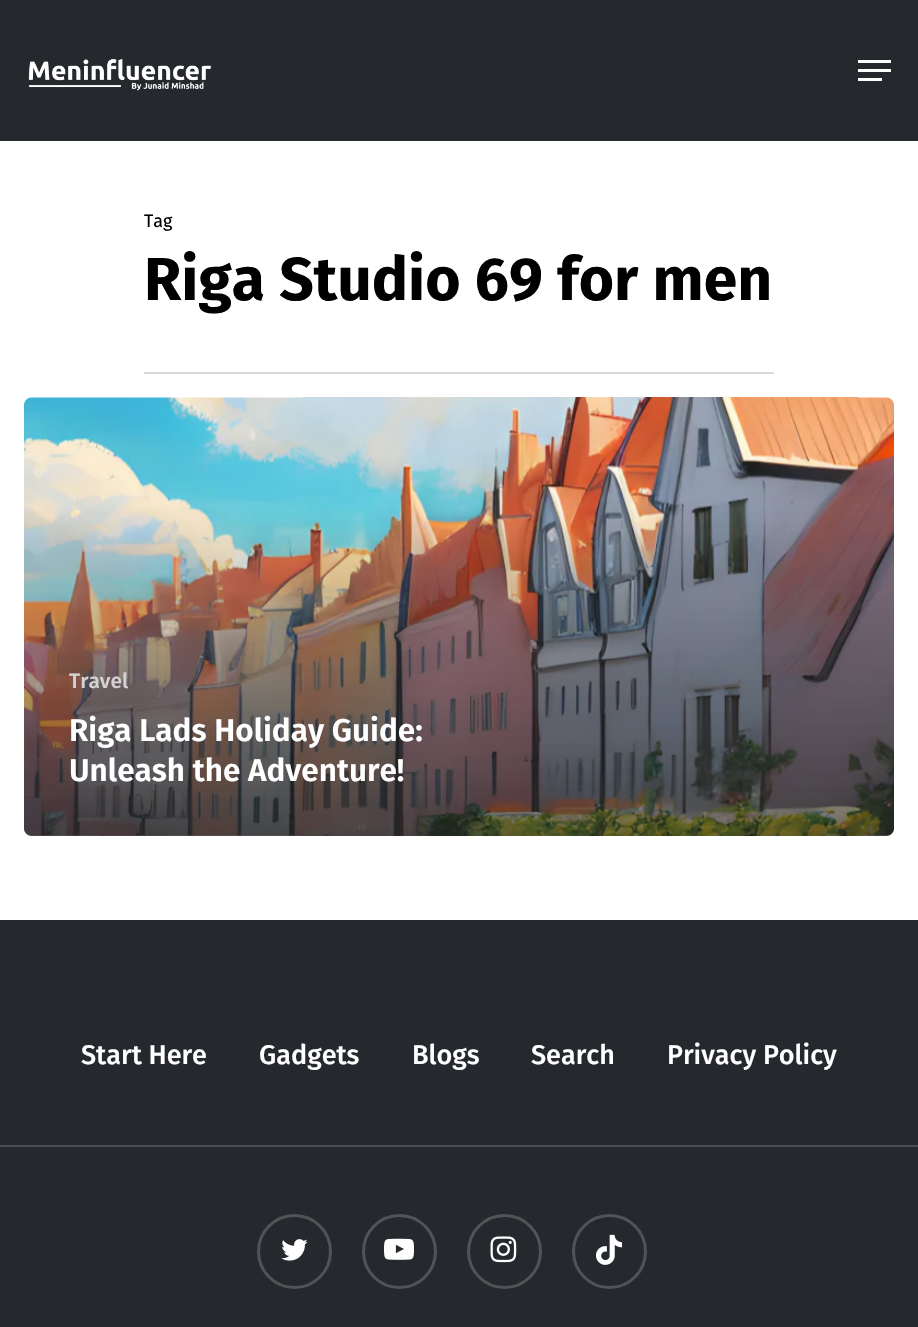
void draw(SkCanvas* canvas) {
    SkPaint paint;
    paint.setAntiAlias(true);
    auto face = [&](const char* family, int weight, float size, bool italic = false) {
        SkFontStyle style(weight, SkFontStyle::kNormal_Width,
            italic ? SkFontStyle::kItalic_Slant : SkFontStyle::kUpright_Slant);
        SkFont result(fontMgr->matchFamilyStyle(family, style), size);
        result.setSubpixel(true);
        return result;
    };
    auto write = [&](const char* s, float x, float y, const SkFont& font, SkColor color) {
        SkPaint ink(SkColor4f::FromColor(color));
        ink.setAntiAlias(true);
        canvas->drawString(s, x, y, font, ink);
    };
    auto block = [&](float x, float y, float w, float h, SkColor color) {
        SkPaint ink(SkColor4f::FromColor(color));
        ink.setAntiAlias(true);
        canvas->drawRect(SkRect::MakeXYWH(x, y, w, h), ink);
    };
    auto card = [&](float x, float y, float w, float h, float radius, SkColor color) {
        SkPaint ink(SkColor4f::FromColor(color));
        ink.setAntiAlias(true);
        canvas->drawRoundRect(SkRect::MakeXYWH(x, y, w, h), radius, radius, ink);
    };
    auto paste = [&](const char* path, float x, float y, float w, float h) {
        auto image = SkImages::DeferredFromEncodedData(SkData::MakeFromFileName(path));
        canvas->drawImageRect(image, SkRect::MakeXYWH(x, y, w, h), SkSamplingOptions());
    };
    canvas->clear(SK_ColorWHITE);
    block(0, 0, 918, 141, SkColorSetRGB(37, 40, 44));
    paste("pic1.png", 28, 59, 184, 32);
    block(858, 60, 33, 3, SK_ColorWHITE);
    block(858, 78, 24, 3, SK_ColorWHITE);
    block(858, 69, 33, 3, SK_ColorWHITE);
    block(144, 372, 630, 2, SkColorSetRGB(217, 217, 217));
    auto kFont1 = face("Fira Sans", 400, 18);
    write("Tag", 144, 227, kFont1, SK_ColorBLACK);
    auto kFont2 = face("Fira Sans", 700, 60.5f);
    write("Riga Studio 69 for men", 144, 300, kFont2, SK_ColorBLACK);
    card(24, 398, 870, 438, 8, SkColorSetRGB(179, 179, 179));
    paste("pic2.png", 24, 397, 870, 439);
    {
        const SkColor colors[] = {SkColorSetARGB(0, 35, 35, 35), SkColorSetARGB(166, 35, 35, 35)};
        const float stops[] = {0, 1};
        const SkPoint ends[] = {{461, 507}, {461, 839}};
        paint.setShader(SkGradientShader::MakeLinear(ends, colors, stops, 2, SkTileMode::kClamp));
        paint.setAlpha(255);
    }
    canvas->drawPath(SkPathBuilder().moveTo(24, 507).lineTo(894, 507).lineTo(894, 828).cubicTo(894, 832.5f, 890.5f, 836, 886, 836).lineTo(32, 836).cubicTo(27.5f, 836, 24, 832.5f, 24, 828).close().detach(), paint);
    auto kFont3 = face("Fira Sans", 500, 21);
    write("Travel", 69, 688, kFont3, SkColorSetRGB(214, 210, 209));
    auto kFont4 = face("Fira Sans", 600, 31.5f);
    write("Riga Lads Holiday Guide:", 69, 741, kFont4, SK_ColorWHITE);
    write("Unleash the Adventure!", 69, 781, kFont4, SK_ColorWHITE);
    block(0, 920, 918, 407, SkColorSetRGB(37, 40, 44));
    auto kFont5 = face("Fira Sans", 500, 27);
    write("Start Here", 81, 1064, kFont5, SK_ColorWHITE);
    write("Gadgets", 259, 1064, kFont5, SK_ColorWHITE);
    write("Blogs", 412, 1064, kFont5, SK_ColorWHITE);
    write("Search", 531, 1064, kFont5, SK_ColorWHITE);
    write("Privacy Policy", 667, 1064, kFont5, SK_ColorWHITE);
    block(0, 1145, 918, 2, SkColorSetRGB(76, 79, 82));
    paste("pic3.png", 281, 1239, 27, 22);
    paint.setStyle(SkPaint::kStroke_Style);
    paint.setStrokeWidth(3);
    paint.setShader(nullptr);
    paint.setColor(SkColorSetRGB(81, 83, 86));
    canvas->drawCircle(294.5f, 1251.5f, 36, paint);
    paste("pic4.png", 384, 1238, 30, 22);
    canvas->drawCircle(399.5f, 1251.5f, 36, paint);
    paste("pic5.png", 490, 1236, 27, 27);
    canvas->drawCircle(504.5f, 1251.5f, 36, paint);
    paste("pic6.png", 596, 1234, 27, 31);
    canvas->drawCircle(609.5f, 1251.5f, 36, paint);
}
